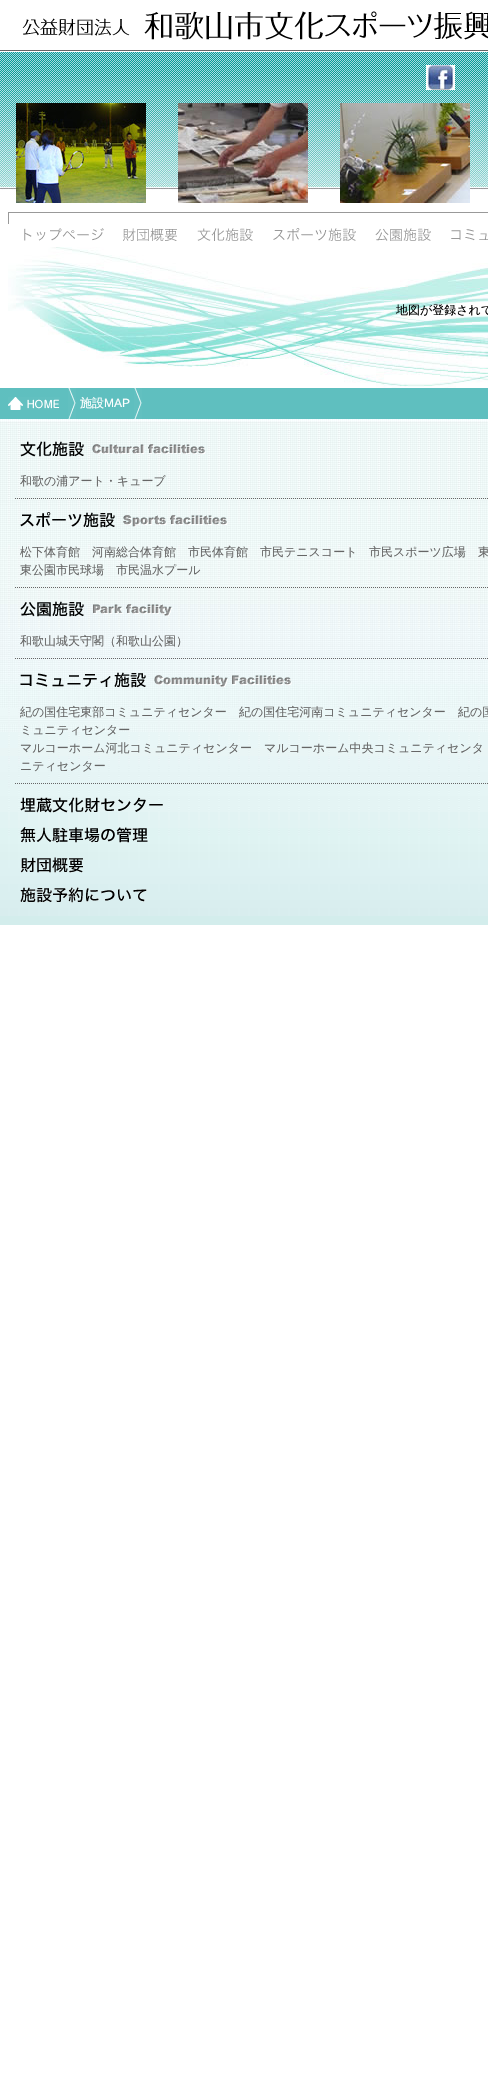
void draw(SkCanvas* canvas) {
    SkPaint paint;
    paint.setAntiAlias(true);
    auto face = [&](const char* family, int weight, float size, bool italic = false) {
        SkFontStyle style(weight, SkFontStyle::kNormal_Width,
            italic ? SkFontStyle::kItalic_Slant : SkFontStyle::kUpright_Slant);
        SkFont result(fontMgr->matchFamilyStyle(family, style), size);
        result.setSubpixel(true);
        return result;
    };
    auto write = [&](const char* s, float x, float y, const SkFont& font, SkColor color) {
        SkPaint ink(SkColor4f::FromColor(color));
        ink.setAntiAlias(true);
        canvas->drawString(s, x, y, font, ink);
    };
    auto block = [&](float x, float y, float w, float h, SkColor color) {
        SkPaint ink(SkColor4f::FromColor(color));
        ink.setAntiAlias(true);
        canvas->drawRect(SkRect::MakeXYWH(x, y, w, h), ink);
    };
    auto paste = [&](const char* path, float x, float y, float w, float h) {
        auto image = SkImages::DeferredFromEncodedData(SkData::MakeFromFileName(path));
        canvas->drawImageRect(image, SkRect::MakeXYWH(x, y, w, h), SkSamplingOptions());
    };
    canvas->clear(SK_ColorWHITE);
    paste("pic1.png", 0, 52, 488, 138);
    paste("pic2.png", 0, 0, 488, 52);
    paste("pic3.png", 22, 11, 466, 29);
    paste("pic4.png", 426, 65, 29, 25);
    paste("pic5.png", 16, 103, 130, 100);
    paste("pic6.png", 178, 103, 130, 100);
    paste("pic7.png", 340, 103, 130, 100);
    paste("pic8.png", 8, 212, 105, 29);
    paste("pic9.png", 113, 212, 75, 29);
    paste("pic10.png", 188, 212, 75, 29);
    paste("pic11.png", 263, 212, 104, 29);
    paste("pic12.png", 367, 212, 75, 29);
    paste("pic13.png", 442, 212, 46, 29);
    paste("pic14.png", 8, 247, 480, 141);
    auto kFont1 = face("WenQuanYi Zen Hei", 500, 12);
    write("地図が登録されて", 396, 314, kFont1, SK_ColorBLACK);
    block(0, 916, 488, 9, SkColorSetRGB(211, 237, 236));
    paste("pic15.png", 0, 419, 488, 497);
    block(0, 388, 488, 31, SkColorSetRGB(95, 191, 191));
    paste("pic16.png", 68, 388, 8, 31);
    paste("pic17.png", 8, 397, 52, 13);
    paste("pic16.png", 134, 388, 8, 31);
    write("施設", 80, 407, kFont1, SK_ColorWHITE);
    auto kFont2 = face("Liberation Sans", 400, 12);
    write("MAP", 104, 407, kFont2, SK_ColorWHITE);
    paste("pic18.png", 20, 441, 186, 16);
    paint.setStyle(SkPaint::kStroke_Style);
    paint.setStrokeWidth(1);
    paint.setColor(SkColorSetRGB(102, 102, 102));
    paint.setPathEffect(SkDashPathEffect::Make({{1, 1}}, 0));
    canvas->drawPath(SkPathBuilder().moveTo(15, 498.5f).lineTo(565, 498.5f).detach(), paint);
    paint.setPathEffect(nullptr);
    write("和歌の浦アート・キューブ", 20, 485, kFont1, SkColorSetRGB(102, 102, 102));
    paste("pic19.png", 20, 512, 208, 16);
    paint.setPathEffect(SkDashPathEffect::Make({{1, 1}}, 0));
    canvas->drawPath(SkPathBuilder().moveTo(15, 587.5f).lineTo(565, 587.5f).detach(), paint);
    paint.setPathEffect(nullptr);
    write("松下体育館", 20, 556, kFont1, SkColorSetRGB(102, 102, 102));
    write("河南総合体育館", 92, 556, kFont1, SkColorSetRGB(102, 102, 102));
    write("市民体育館", 188, 556, kFont1, SkColorSetRGB(102, 102, 102));
    write("市民テニスコート", 260, 556, kFont1, SkColorSetRGB(102, 102, 102));
    write("市民スポーツ広場", 369, 556, kFont1, SkColorSetRGB(102, 102, 102));
    write("東", 478, 556, kFont1, SkColorSetRGB(102, 102, 102));
    write("東公園市民球場", 20, 574, kFont1, SkColorSetRGB(102, 102, 102));
    write("市民温水プール", 116, 574, kFont1, SkColorSetRGB(102, 102, 102));
    paste("pic20.png", 20, 601, 153, 16);
    paint.setPathEffect(SkDashPathEffect::Make({{1, 1}}, 0));
    canvas->drawPath(SkPathBuilder().moveTo(15, 658.5f).lineTo(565, 658.5f).detach(), paint);
    paint.setPathEffect(nullptr);
    write("和歌山城天守閣（和歌山公園）", 20, 645, kFont1, SkColorSetRGB(102, 102, 102));
    paste("pic21.png", 20, 672, 272, 16);
    paint.setPathEffect(SkDashPathEffect::Make({{1, 1}}, 0));
    canvas->drawPath(SkPathBuilder().moveTo(15, 783.5f).lineTo(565, 783.5f).detach(), paint);
    paint.setPathEffect(nullptr);
    write("紀の国住宅東部コミュニティセンター", 20, 716, kFont1, SkColorSetRGB(102, 102, 102));
    write("紀の国住宅河南コミュニティセンター", 239, 716, kFont1, SkColorSetRGB(102, 102, 102));
    write("紀の国", 458, 716, kFont1, SkColorSetRGB(102, 102, 102));
    write("ミュニティセンター", 20, 734, kFont1, SkColorSetRGB(102, 102, 102));
    write("マルコーホーム河北コミュニティセンター", 20, 752, kFont1, SkColorSetRGB(102, 102, 102));
    write("マルコーホーム中央コミュニティセンタ", 264, 752, kFont1, SkColorSetRGB(102, 102, 102));
    write("ニティセンター", 20, 770, kFont1, SkColorSetRGB(102, 102, 102));
    paste("pic22.png", 20, 797, 143, 16);
    paste("pic23.png", 20, 827, 128, 16);
    paste("pic24.png", 20, 857, 63, 16);
    paste("pic25.png", 20, 887, 127, 16);
}
